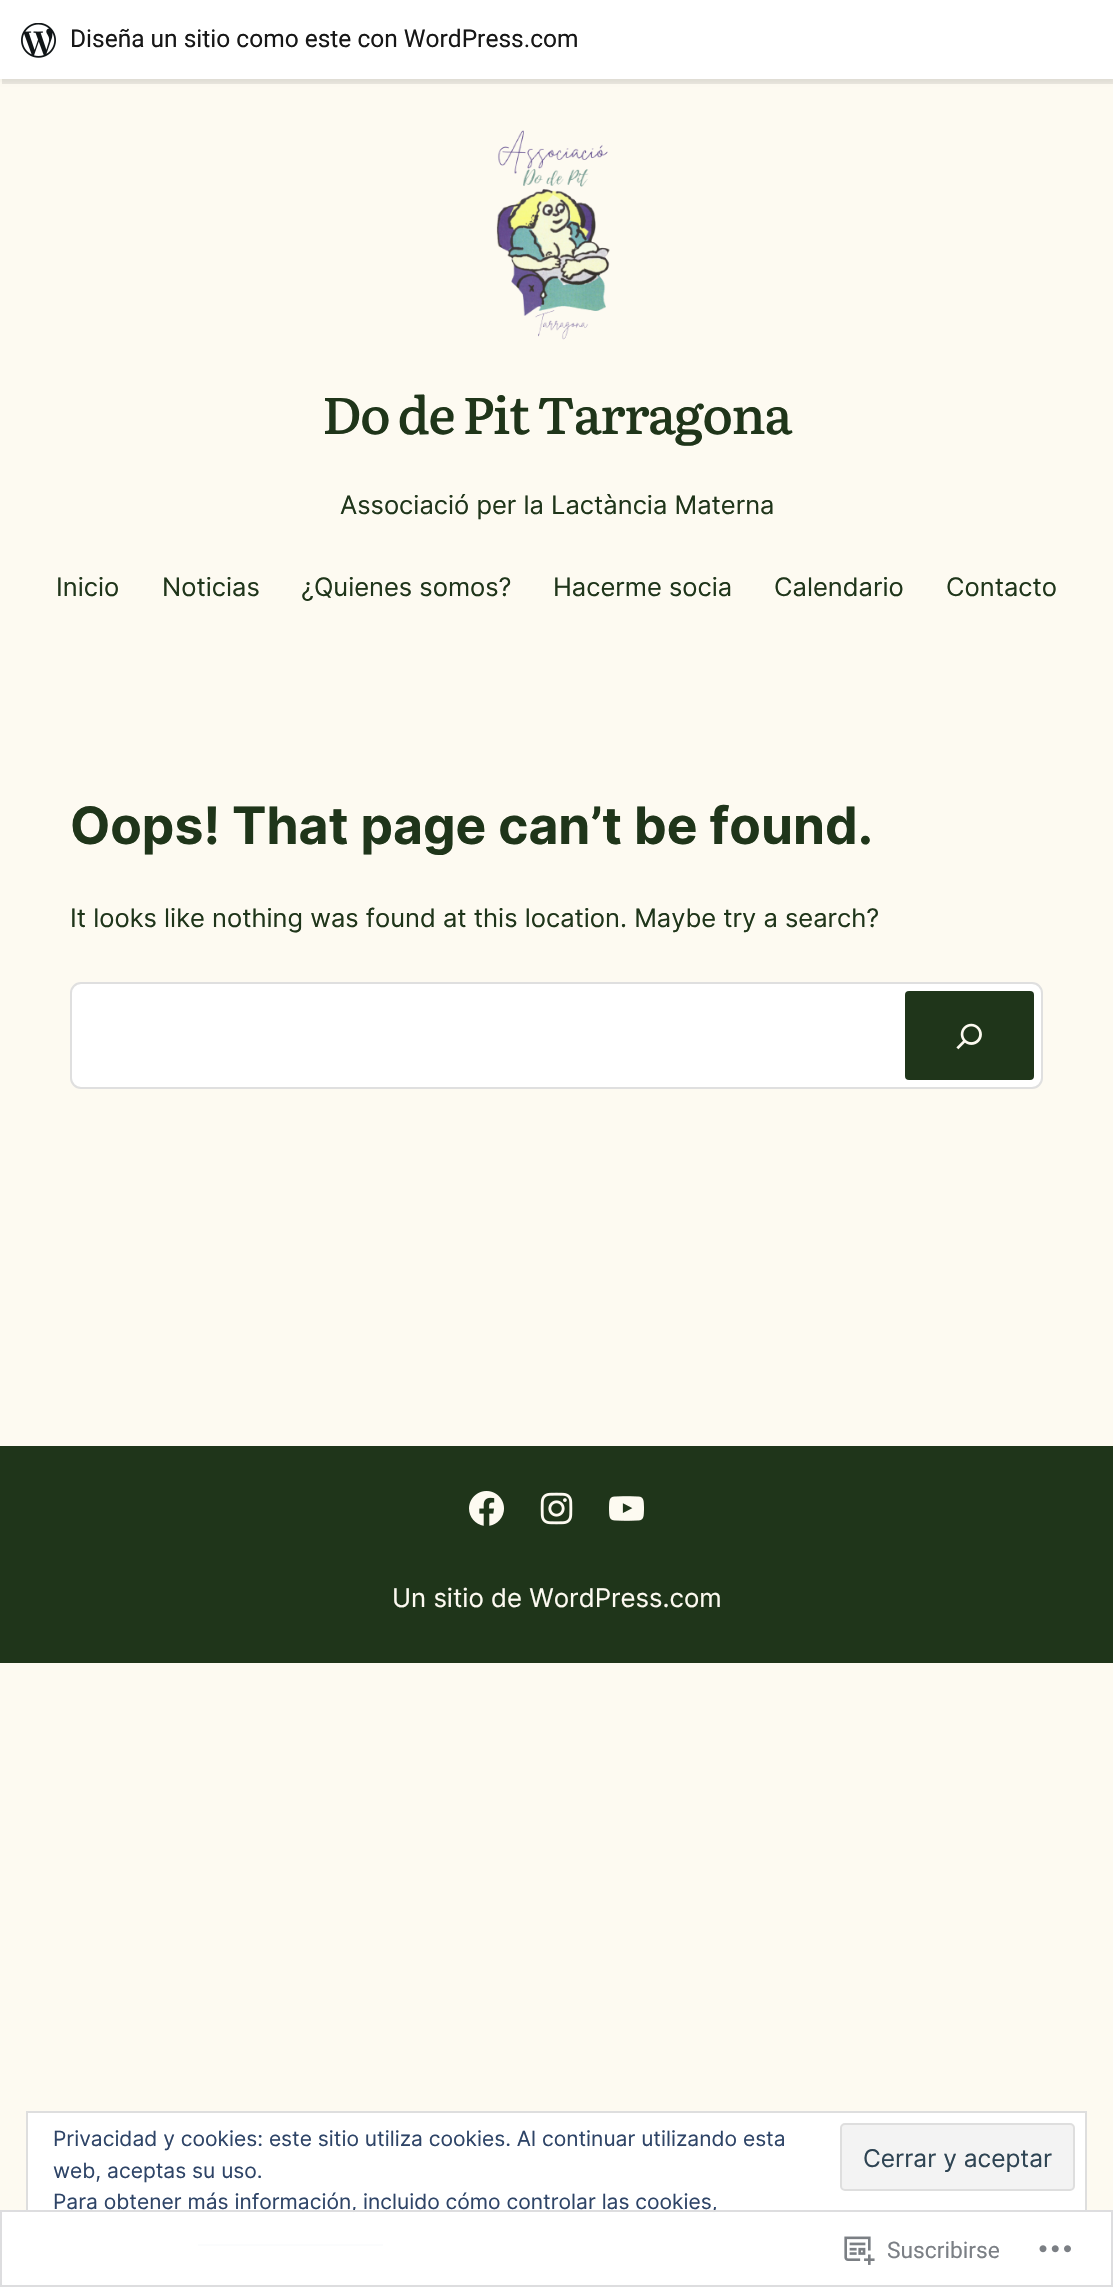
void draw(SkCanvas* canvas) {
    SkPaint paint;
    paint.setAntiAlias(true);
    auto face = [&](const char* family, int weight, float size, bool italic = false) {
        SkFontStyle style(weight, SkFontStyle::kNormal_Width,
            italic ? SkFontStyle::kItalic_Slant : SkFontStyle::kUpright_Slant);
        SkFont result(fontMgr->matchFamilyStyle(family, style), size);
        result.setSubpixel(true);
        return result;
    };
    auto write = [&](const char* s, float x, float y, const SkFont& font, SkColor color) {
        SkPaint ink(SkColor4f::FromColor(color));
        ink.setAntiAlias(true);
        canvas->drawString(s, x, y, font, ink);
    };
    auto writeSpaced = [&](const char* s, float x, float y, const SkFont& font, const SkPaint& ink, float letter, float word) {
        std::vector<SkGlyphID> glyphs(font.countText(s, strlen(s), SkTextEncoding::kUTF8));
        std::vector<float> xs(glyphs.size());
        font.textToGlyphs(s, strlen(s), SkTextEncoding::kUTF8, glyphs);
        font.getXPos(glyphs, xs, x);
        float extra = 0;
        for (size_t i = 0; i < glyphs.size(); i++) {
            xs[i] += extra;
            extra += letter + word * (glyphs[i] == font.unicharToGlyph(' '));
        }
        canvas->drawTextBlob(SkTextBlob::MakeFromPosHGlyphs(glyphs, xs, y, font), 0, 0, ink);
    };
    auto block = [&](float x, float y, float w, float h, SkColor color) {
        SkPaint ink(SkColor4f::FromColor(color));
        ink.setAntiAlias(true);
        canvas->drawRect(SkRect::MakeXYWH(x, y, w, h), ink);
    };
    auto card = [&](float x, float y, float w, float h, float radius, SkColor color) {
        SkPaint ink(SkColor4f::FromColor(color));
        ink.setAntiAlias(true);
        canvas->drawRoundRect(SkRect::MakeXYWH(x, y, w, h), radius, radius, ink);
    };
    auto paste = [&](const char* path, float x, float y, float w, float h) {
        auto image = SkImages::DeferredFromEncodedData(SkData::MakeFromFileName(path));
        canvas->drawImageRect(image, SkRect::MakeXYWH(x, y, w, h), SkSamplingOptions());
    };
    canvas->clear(SkColorSetRGB(253, 250, 241));
    paint.setColor(SkColorSetARGB(13, 0, 0, 0));
    paint.setMaskFilter(SkMaskFilter::MakeBlur(kNormal_SkBlurStyle, 2));
    canvas->drawRect(SkRect::MakeXYWH(0, 2, 1113, 79), paint);
    paint.setMaskFilter(nullptr);
    paint.setColor(SkColorSetARGB(20, 0, 0, 0));
    canvas->drawPath(SkPathBuilder().moveTo(2, 79).lineTo(2, 84).lineTo(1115, 84).lineTo(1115, 5).lineTo(1113, 5).lineTo(1113, 79).close().detach(), paint);
    block(0, 0, 1113, 79, SK_ColorWHITE);
    paste("pic1.png", 21, 23, 35, 35);
    auto kFont1 = face("Roboto", 400, 24.5f);
    write("Diseña un sitio como este con WordPress.com", 70, 47, kFont1, SkColorSetRGB(23, 23, 23));
    paste("pic2.png", 496, 130, 114, 210);
    auto kFont2 = face("Literata", 500, 51.5f);
    paint.setColor(SkColorSetRGB(31, 53, 26));
    writeSpaced("Do de Pit Tarragona", 322, 434, kFont2, paint, -1.7f, 0);
    auto kFont3 = face("Inter", 400, 25.5f);
    write("Associació per la Lactància Materna", 340, 514, kFont3, SkColorSetRGB(31, 53, 26));
    write("Inicio", 56, 596, kFont3, SkColorSetRGB(31, 53, 26));
    write("Noticias", 162, 596, kFont3, SkColorSetRGB(31, 53, 26));
    write("¿Quienes somos?", 301, 596, kFont3, SkColorSetRGB(31, 53, 26));
    write("Hacerme socia", 553, 596, kFont3, SkColorSetRGB(31, 53, 26));
    write("Calendario", 774, 596, kFont3, SkColorSetRGB(31, 53, 26));
    write("Contacto", 946, 596, kFont3, SkColorSetRGB(31, 53, 26));
    auto kFont4 = face("Inter", 700, 51.5f);
    write("Oops! That page can’t be found.", 70, 844, kFont4, SkColorSetRGB(31, 53, 26));
    write("It looks like nothing was found at this location. Maybe try a search?", 70, 927, kFont3, SkColorSetRGB(31, 53, 26));
    paint.setColor(SK_ColorWHITE);
    canvas->drawRoundRect(SkRect::MakeXYWH(71, 983, 971, 105), 10, 10, paint);
    paint.setStyle(SkPaint::kStroke_Style);
    paint.setStrokeWidth(2);
    paint.setColor(SkColorSetRGB(223, 223, 223));
    canvas->drawRoundRect(SkRect::MakeXYWH(71, 983, 971, 105), 10, 10, paint);
    card(905, 991, 129, 89, 4, SkColorSetRGB(31, 53, 26));
    paste("pic3.png", 956, 1023, 26, 27);
    block(0, 1446, 1113, 217, SkColorSetRGB(31, 53, 26));
    paste("pic4.png", 469, 1491, 35, 35);
    paste("pic5.png", 540, 1492, 33, 33);
    paste("pic6.png", 609, 1496, 35, 25);
    auto kFont5 = face("Inter", 400, 25.75f);
    write("Un sitio de WordPress.com", 392, 1607, kFont5, SkColorSetRGB(253, 250, 241));
    paint.setStyle(SkPaint::kFill_Style);
    paint.setColor(SK_ColorWHITE);
    canvas->drawRect(SkRect::MakeXYWH(27, 2112, 1059, 148), paint);
    paint.setStyle(SkPaint::kStroke_Style);
    paint.setColor(SkColorSetRGB(222, 222, 222));
    canvas->drawRect(SkRect::MakeXYWH(27, 2112, 1059, 148), paint);
    auto kFont6 = face("Inter", 400, 21);
    write("Privacidad y cookies: este sitio utiliza cookies. Al continuar utilizando esta", 53, 2146, kFont6, SkColorSetRGB(46, 68, 103));
    write("web, aceptas su uso.", 53, 2178, kFont6, SkColorSetRGB(46, 68, 103));
    paint.setStyle(SkPaint::kFill_Style);
    paint.setColor(SkColorSetRGB(243, 243, 243));
    canvas->drawRoundRect(SkRect::MakeXYWH(841, 2124, 233, 66), 4, 4, paint);
    paint.setStyle(SkPaint::kStroke_Style);
    paint.setColor(SkColorSetRGB(222, 222, 222));
    canvas->drawRoundRect(SkRect::MakeXYWH(841, 2124, 233, 66), 4, 4, paint);
    auto kFont7 = face("Inter", 400, 24.5f);
    write("Cerrar y aceptar", 863, 2167, kFont7, SkColorSetRGB(46, 68, 83));
    write("Para obtener más información, incluido cómo controlar las cookies,", 53, 2209, kFont6, SkColorSetRGB(46, 68, 103));
    block(198, 2244, 185, 2, SkColorSetRGB(46, 68, 103));
    block(0, 2210, 1113, 77, SkColorSetARGB(250, 255, 255, 255));
    paint.setColor(SkColorSetARGB(250, 220, 220, 222));
    canvas->drawRect(SkRect::MakeXYWH(1, 2211, 1111, 75), paint);
    paste("pic7.png", 844, 2236, 31, 29);
    auto kFont8 = face("Roboto", 400, 22.75f);
    write("Suscribirse", 887, 2258, kFont8, SkColorSetRGB(123, 127, 133));
    paste("pic8.png", 1039, 2245, 32, 8);
}
